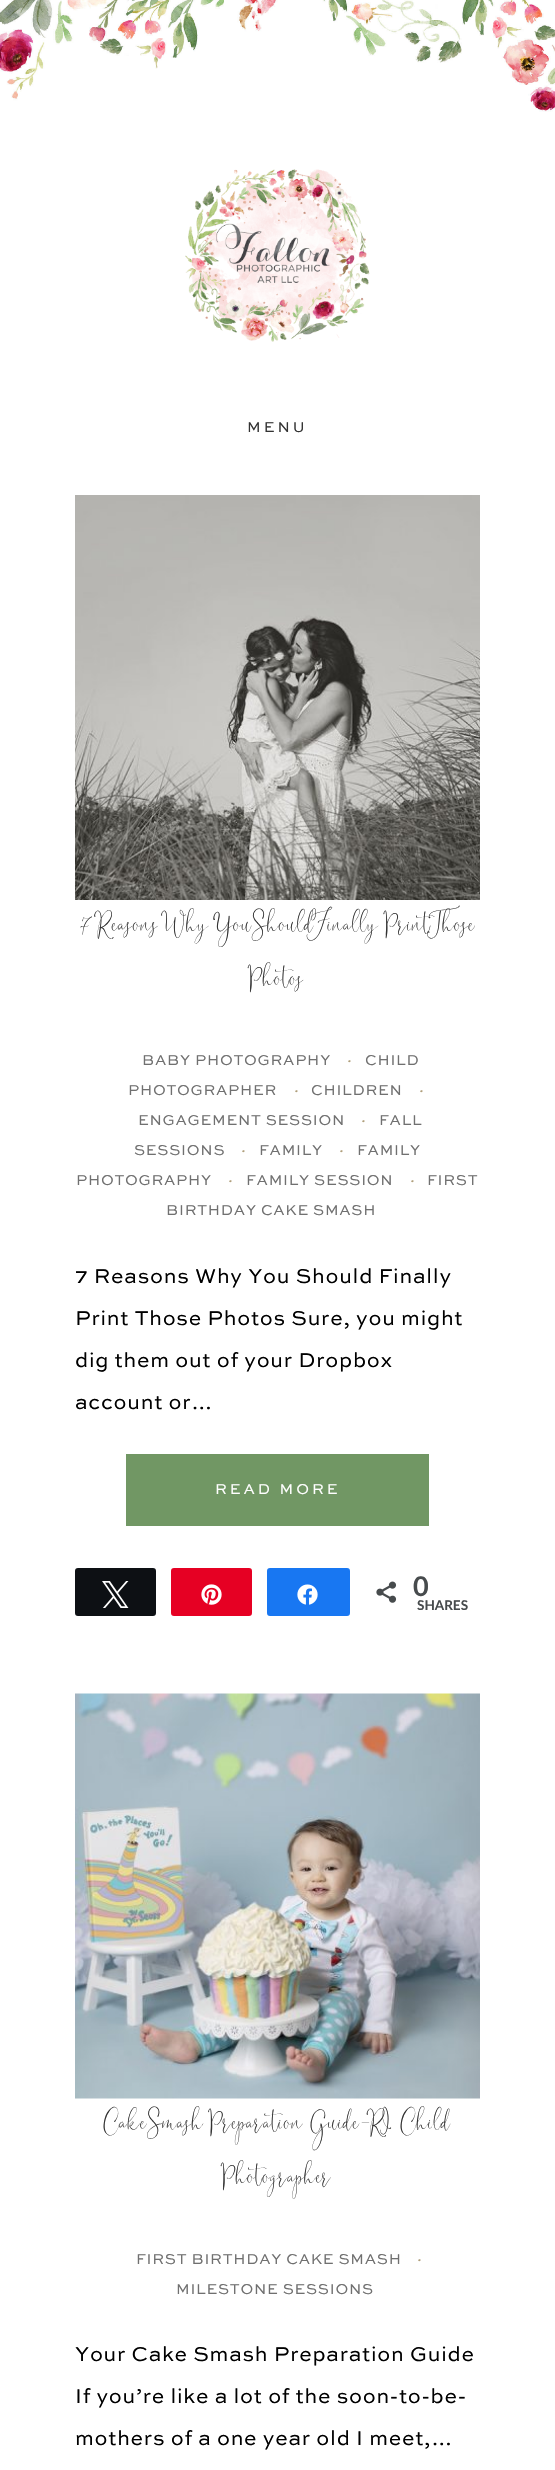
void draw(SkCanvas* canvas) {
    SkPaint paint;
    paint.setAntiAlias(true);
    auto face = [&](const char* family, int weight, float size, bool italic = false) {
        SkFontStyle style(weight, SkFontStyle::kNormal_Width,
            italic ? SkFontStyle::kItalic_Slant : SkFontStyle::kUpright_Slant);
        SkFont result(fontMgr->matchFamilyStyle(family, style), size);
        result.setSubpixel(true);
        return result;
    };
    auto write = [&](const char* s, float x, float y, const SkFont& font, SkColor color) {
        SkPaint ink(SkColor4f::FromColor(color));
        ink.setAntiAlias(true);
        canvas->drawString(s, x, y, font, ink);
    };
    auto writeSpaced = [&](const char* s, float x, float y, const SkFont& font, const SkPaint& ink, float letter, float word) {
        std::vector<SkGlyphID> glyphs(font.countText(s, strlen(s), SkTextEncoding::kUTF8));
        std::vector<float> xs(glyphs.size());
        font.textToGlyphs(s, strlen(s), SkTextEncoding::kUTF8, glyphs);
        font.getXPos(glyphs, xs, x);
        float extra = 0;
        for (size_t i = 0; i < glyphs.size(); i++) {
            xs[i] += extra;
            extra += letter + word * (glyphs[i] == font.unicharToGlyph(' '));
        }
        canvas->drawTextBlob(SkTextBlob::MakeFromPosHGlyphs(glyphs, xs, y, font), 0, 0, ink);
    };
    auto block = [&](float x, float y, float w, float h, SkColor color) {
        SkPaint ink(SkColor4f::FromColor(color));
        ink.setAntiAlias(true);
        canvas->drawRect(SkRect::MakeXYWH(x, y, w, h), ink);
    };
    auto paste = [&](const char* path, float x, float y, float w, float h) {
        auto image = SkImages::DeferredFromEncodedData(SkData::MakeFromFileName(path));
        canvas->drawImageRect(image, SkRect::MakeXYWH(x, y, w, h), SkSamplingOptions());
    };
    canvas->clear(SK_ColorWHITE);
    paste("pic1.png", 0, 0, 555, 112);
    paste("pic2.png", 185, 169, 185, 173);
    auto kFont1 = face("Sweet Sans", 400, 15);
    paint.setColor(SkColorSetRGB(51, 51, 51));
    writeSpaced("MENU", 247, 432, kFont1, paint, 3, 0);
    paste("pic3.png", 75, 495, 405, 405);
    auto kFont2 = face("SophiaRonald", 400, 45);
    writeSpaced("7 Reasons Why You Should Finally Print Those", 80, 929, kFont2, paint, 0.75f, 0);
    writeSpaced("Photos", 251, 983, kFont2, paint, 0.75f, 0);
    paint.setColor(SkColorSetRGB(112, 112, 112));
    writeSpaced("BABY PHOTOGRAPHY", 142, 1065, kFont1, paint, 0.75f, 0);
    auto kFont3 = face("Sweet Sans", 400, 15, true);
    paint.setColor(SkColorSetRGB(174, 157, 120));
    writeSpaced("·", 343, 1065, kFont3, paint, 0.75f, 0);
    paint.setColor(SkColorSetRGB(112, 112, 112));
    writeSpaced("CHILD", 365, 1065, kFont1, paint, 0.75f, 0);
    writeSpaced("PHOTOGRAPHER", 128, 1095, kFont1, paint, 0.75f, 0);
    paint.setColor(SkColorSetRGB(174, 157, 120));
    writeSpaced("·", 290, 1095, kFont3, paint, 0.75f, 0);
    paint.setColor(SkColorSetRGB(112, 112, 112));
    writeSpaced("CHILDREN", 311, 1095, kFont1, paint, 0.75f, 0);
    paint.setColor(SkColorSetRGB(174, 157, 120));
    writeSpaced("·", 415, 1095, kFont3, paint, 0.75f, 0);
    paint.setColor(SkColorSetRGB(112, 112, 112));
    writeSpaced("ENGAGEMENT SESSION", 138, 1125, kFont1, paint, 0.75f, 0);
    paint.setColor(SkColorSetRGB(174, 157, 120));
    writeSpaced("·", 357, 1125, kFont3, paint, 0.75f, 0);
    paint.setColor(SkColorSetRGB(112, 112, 112));
    writeSpaced("FALL", 379, 1125, kFont1, paint, 0.75f, 0);
    writeSpaced("SESSIONS", 134, 1155, kFont1, paint, 0.75f, 0);
    paint.setColor(SkColorSetRGB(174, 157, 120));
    writeSpaced("·", 237, 1155, kFont3, paint, 0.75f, 0);
    paint.setColor(SkColorSetRGB(112, 112, 112));
    writeSpaced("FAMILY", 259, 1155, kFont1, paint, 0.75f, 0);
    paint.setColor(SkColorSetRGB(174, 157, 120));
    writeSpaced("·", 335, 1155, kFont3, paint, 0.75f, 0);
    paint.setColor(SkColorSetRGB(112, 112, 112));
    writeSpaced("FAMILY", 357, 1155, kFont1, paint, 0.75f, 0);
    writeSpaced("PHOTOGRAPHY", 76, 1185, kFont1, paint, 0.75f, 0);
    paint.setColor(SkColorSetRGB(174, 157, 120));
    writeSpaced("·", 224, 1185, kFont3, paint, 0.75f, 0);
    paint.setColor(SkColorSetRGB(112, 112, 112));
    writeSpaced("FAMILY SESSION", 246, 1185, kFont1, paint, 0.75f, 0);
    paint.setColor(SkColorSetRGB(174, 157, 120));
    writeSpaced("·", 406, 1185, kFont3, paint, 0.75f, 0);
    paint.setColor(SkColorSetRGB(112, 112, 112));
    writeSpaced("FIRST", 427, 1185, kFont1, paint, 0.75f, 0);
    writeSpaced("BIRTHDAY CAKE SMASH", 166, 1215, kFont1, paint, 0.75f, 0);
    auto kFont4 = face("Sweet Sans", 400, 21);
    paint.setColor(SK_ColorBLACK);
    writeSpaced("7 Reasons Why You Should Finally", 75, 1283, kFont4, paint, 0.75f, 0);
    writeSpaced("Print Those Photos Sure, you might", 75, 1325, kFont4, paint, 0.75f, 0);
    writeSpaced("dig them out of your Dropbox", 75, 1367, kFont4, paint, 0.75f, 0);
    writeSpaced("account or…", 75, 1409, kFont4, paint, 0.75f, 0);
    block(126, 1454, 303, 72, SkColorSetRGB(113, 151, 100));
    paint.setColor(SK_ColorWHITE);
    writeSpaced("READ MORE", 215, 1494, kFont1, paint, 3, 0);
    paint.setColor(SkColorSetRGB(13, 16, 20));
    canvas->drawRoundRect(SkRect::MakeXYWH(76, 1569, 79, 46), 2, 2, paint);
    paint.setStyle(SkPaint::kStroke_Style);
    paint.setStrokeWidth(2);
    canvas->drawRoundRect(SkRect::MakeXYWH(76, 1569, 79, 46), 2, 2, paint);
    paste("pic4.png", 102, 1581, 27, 27);
    paint.setStyle(SkPaint::kFill_Style);
    paint.setColor(SkColorSetRGB(230, 0, 35));
    canvas->drawRoundRect(SkRect::MakeXYWH(172, 1569, 79, 46), 2, 2, paint);
    paint.setStyle(SkPaint::kStroke_Style);
    canvas->drawRoundRect(SkRect::MakeXYWH(172, 1569, 79, 46), 2, 2, paint);
    paste("pic5.png", 201, 1584, 21, 21);
    paint.setStyle(SkPaint::kFill_Style);
    paint.setColor(SkColorSetRGB(24, 119, 242));
    canvas->drawRoundRect(SkRect::MakeXYWH(268, 1569, 81, 46), 2, 2, paint);
    paint.setStyle(SkPaint::kStroke_Style);
    canvas->drawRoundRect(SkRect::MakeXYWH(268, 1569, 81, 46), 2, 2, paint);
    paste("pic6.png", 297, 1584, 21, 21);
    paste("pic7.png", 376, 1581, 21, 22);
    auto kFont5 = face("Lato", 700, 27);
    paint.setStyle(SkPaint::kFill_Style);
    paint.setColor(SkColorSetRGB(71, 75, 77));
    writeSpaced("0", 413, 1596, kFont5, paint, 0.75f, 0);
    auto kFont6 = face("Lato", 700, 13.5f);
    write("SHARES", 417, 1610, kFont6, SkColorSetRGB(71, 75, 77));
    paste("pic8.png", 75, 1693, 405, 406);
    paint.setColor(SkColorSetRGB(51, 51, 51));
    writeSpaced("Cake Smash Preparation Guide-RI Child", 104, 2127, kFont2, paint, 0.75f, 0);
    writeSpaced("Photographer", 224, 2181, kFont2, paint, 0.75f, 0);
    paint.setColor(SkColorSetRGB(112, 112, 112));
    writeSpaced("FIRST BIRTHDAY CAKE SMASH", 136, 2264, kFont1, paint, 0.75f, 0);
    paint.setColor(SkColorSetRGB(174, 157, 120));
    writeSpaced("·", 413, 2264, kFont3, paint, 0.75f, 0);
    paint.setColor(SkColorSetRGB(112, 112, 112));
    writeSpaced("MILESTONE SESSIONS", 176, 2294, kFont1, paint, 0.75f, 0);
    paint.setColor(SK_ColorBLACK);
    writeSpaced("Your Cake Smash Preparation Guide", 75, 2361, kFont4, paint, 0.75f, 0);
    writeSpaced("If you’re like a lot of the soon-to-be-", 75, 2403, kFont4, paint, 0.75f, 0);
    writeSpaced("mothers of a one year old I meet,…", 75, 2445, kFont4, paint, 0.75f, 0);
}
